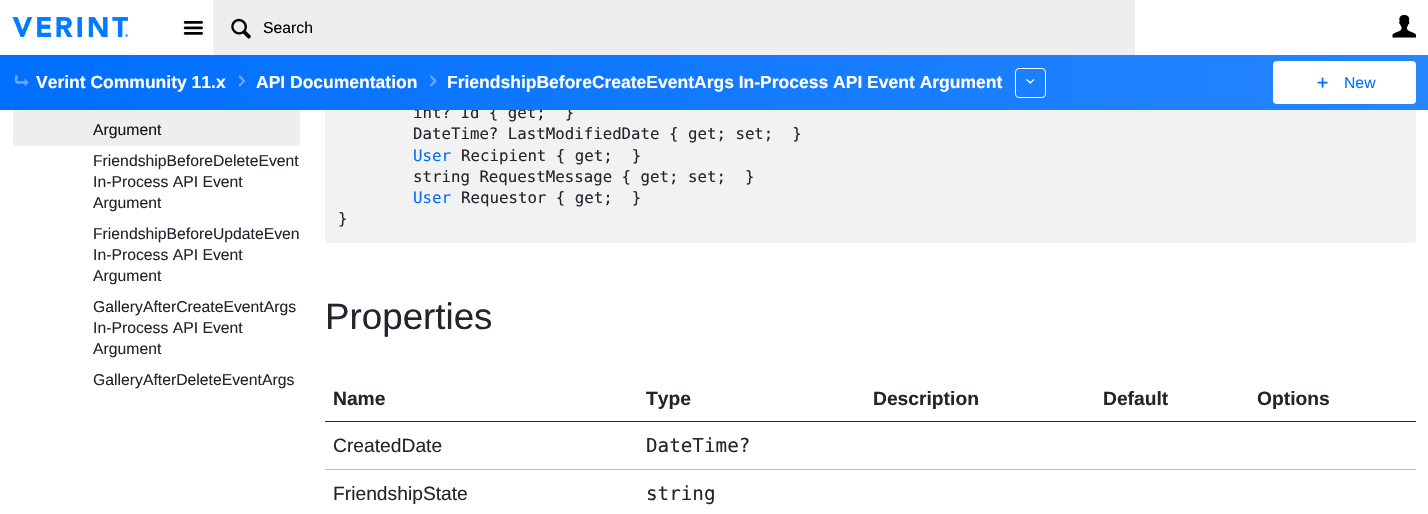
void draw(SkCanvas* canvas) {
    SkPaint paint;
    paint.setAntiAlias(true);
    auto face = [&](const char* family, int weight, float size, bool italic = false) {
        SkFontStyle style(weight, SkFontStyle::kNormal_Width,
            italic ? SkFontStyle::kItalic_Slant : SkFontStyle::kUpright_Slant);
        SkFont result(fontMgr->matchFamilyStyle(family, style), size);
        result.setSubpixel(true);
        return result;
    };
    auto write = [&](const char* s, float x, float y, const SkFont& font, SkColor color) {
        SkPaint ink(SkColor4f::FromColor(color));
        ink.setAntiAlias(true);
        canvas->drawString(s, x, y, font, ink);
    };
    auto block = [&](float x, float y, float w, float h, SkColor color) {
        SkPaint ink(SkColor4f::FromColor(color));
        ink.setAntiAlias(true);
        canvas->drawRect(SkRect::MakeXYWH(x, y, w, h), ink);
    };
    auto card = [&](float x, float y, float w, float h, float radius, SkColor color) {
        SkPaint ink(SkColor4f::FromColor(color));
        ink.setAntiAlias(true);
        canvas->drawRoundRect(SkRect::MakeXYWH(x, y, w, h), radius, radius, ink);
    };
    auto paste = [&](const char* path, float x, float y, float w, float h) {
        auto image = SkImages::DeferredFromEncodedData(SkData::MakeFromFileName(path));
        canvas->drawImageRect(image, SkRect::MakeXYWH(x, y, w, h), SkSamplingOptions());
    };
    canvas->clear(SK_ColorWHITE);
    card(325, 4, 1091, 239, 4, SkColorSetRGB(242, 242, 242));
    block(325, 4, 1091, 51, SK_ColorWHITE);
    paste("pic1.png", 12, 17, 116, 20);
    paste("pic2.png", 183, 21, 20, 14);
    block(213, 0, 922, 55, SkColorSetRGB(238, 238, 238));
    paste("pic3.png", 231, 18, 20, 21);
    auto kFont1 = face("Liberation Sans", 400, 15.75f);
    write("Search", 263, 33, kFont1, SK_ColorBLACK);
    paste("pic4.png", 1392, 15, 24, 23);
    card(13, 74, 287, 72, 4, SkColorSetRGB(238, 238, 238));
    auto kFont2 = face("DejaVu Sans Mono", 400, 15.75f);
    write("int? Id { get;  }", 413, 118, kFont2, SkColorSetRGB(34, 37, 44));
    {
        const SkColor colors[] = {SkColorSetRGB(0, 111, 255), SkColorSetRGB(38, 133, 255)};
        const float stops[] = {0, 1};
        const SkPoint ends[] = {{0, 83}, {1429, 82}};
        paint.setShader(SkGradientShader::MakeLinear(ends, colors, stops, 2, SkTileMode::kClamp));
        paint.setAlpha(255);
    }
    canvas->drawRect(SkRect::MakeXYWH(0, 55, 1428, 55), paint);
    paste("pic5.png", 15, 75, 14, 12);
    auto kFont3 = face("Liberation Sans", 700, 17.5f);
    write("Verint Community 11.x", 36, 88, kFont3, SK_ColorWHITE);
    paste("pic6.png", 238, 75, 7, 12);
    write("API Documentation", 256, 88, kFont3, SK_ColorWHITE);
    paste("pic7.png", 430, 75, 7, 12);
    write("FriendshipBeforeCreateEventArgs In-Process API Event Argument", 447, 88, kFont3, SK_ColorWHITE);
    paint.setStyle(SkPaint::kStroke_Style);
    paint.setStrokeWidth(1);
    paint.setShader(nullptr);
    paint.setColor(SK_ColorWHITE);
    canvas->drawRoundRect(SkRect::MakeXYWH(1015.5f, 68.5f, 30, 29), 3.5f, 3.5f, paint);
    paste("pic8.png", 1026, 79, 9, 5);
    card(1273, 61, 143, 43, 4, SK_ColorWHITE);
    paste("pic9.png", 1317, 77, 11, 11);
    write("New", 1344, 88, kFont1, SkColorSetRGB(0, 111, 255));
    write("Argument", 93, 135, kFont1, SkColorSetRGB(21, 21, 21));
    write("FriendshipBeforeDeleteEvent", 93, 166, kFont1, SkColorSetRGB(34, 37, 44));
    write("In-Process API Event", 93, 187, kFont1, SkColorSetRGB(34, 37, 44));
    write("Argument", 93, 208, kFont1, SkColorSetRGB(34, 37, 44));
    write("FriendshipBeforeUpdateEven", 93, 239, kFont1, SkColorSetRGB(34, 37, 44));
    write("In-Process API Event", 93, 260, kFont1, SkColorSetRGB(34, 37, 44));
    write("Argument", 93, 281, kFont1, SkColorSetRGB(34, 37, 44));
    write("GalleryAfterCreateEventArgs", 93, 312, kFont1, SkColorSetRGB(34, 37, 44));
    write("In-Process API Event", 93, 333, kFont1, SkColorSetRGB(34, 37, 44));
    write("Argument", 93, 354, kFont1, SkColorSetRGB(34, 37, 44));
    write("GalleryAfterDeleteEventArgs", 93, 385, kFont1, SkColorSetRGB(34, 37, 44));
    write("DateTime? LastModifiedDate { get; set;  }", 413, 139, kFont2, SkColorSetRGB(34, 37, 44));
    write("User", 413, 161, kFont2, SkColorSetRGB(0, 111, 255));
    write("Recipient { get;  }", 461, 161, kFont2, SkColorSetRGB(34, 37, 44));
    write("string RequestMessage { get; set;  }", 413, 182, kFont2, SkColorSetRGB(34, 37, 44));
    write("User", 413, 203, kFont2, SkColorSetRGB(0, 111, 255));
    write("Requestor { get;  }", 461, 203, kFont2, SkColorSetRGB(34, 37, 44));
    write("}", 338, 224, kFont2, SkColorSetRGB(34, 37, 44));
    auto kFont4 = face("Liberation Sans", 400, 36.75f);
    write("Properties", 325, 329, kFont4, SkColorSetRGB(34, 37, 44));
    auto kFont5 = face("Liberation Sans", 700, 19.25f);
    write("Name", 333, 405, kFont5, SkColorSetRGB(34, 37, 44));
    write("Type", 646, 405, kFont5, SkColorSetRGB(34, 37, 44));
    write("Description", 873, 405, kFont5, SkColorSetRGB(34, 37, 44));
    write("Default", 1103, 405, kFont5, SkColorSetRGB(34, 37, 44));
    block(325, 421, 1091, 1, SkColorSetRGB(34, 37, 44));
    write("Options", 1257, 405, kFont5, SkColorSetRGB(34, 37, 44));
    auto kFont6 = face("Liberation Sans", 400, 19.25f);
    write("CreatedDate", 333, 452, kFont6, SkColorSetRGB(34, 37, 44));
    auto kFont7 = face("DejaVu Sans Mono", 400, 19.25f);
    write("DateTime?", 646, 452, kFont7, SkColorSetRGB(34, 37, 44));
    block(325, 469, 1091, 1, SkColorSetRGB(186, 187, 190));
    write("FriendshipState", 333, 500, kFont6, SkColorSetRGB(34, 37, 44));
    write("string", 646, 500, kFont7, SkColorSetRGB(34, 37, 44));
}
